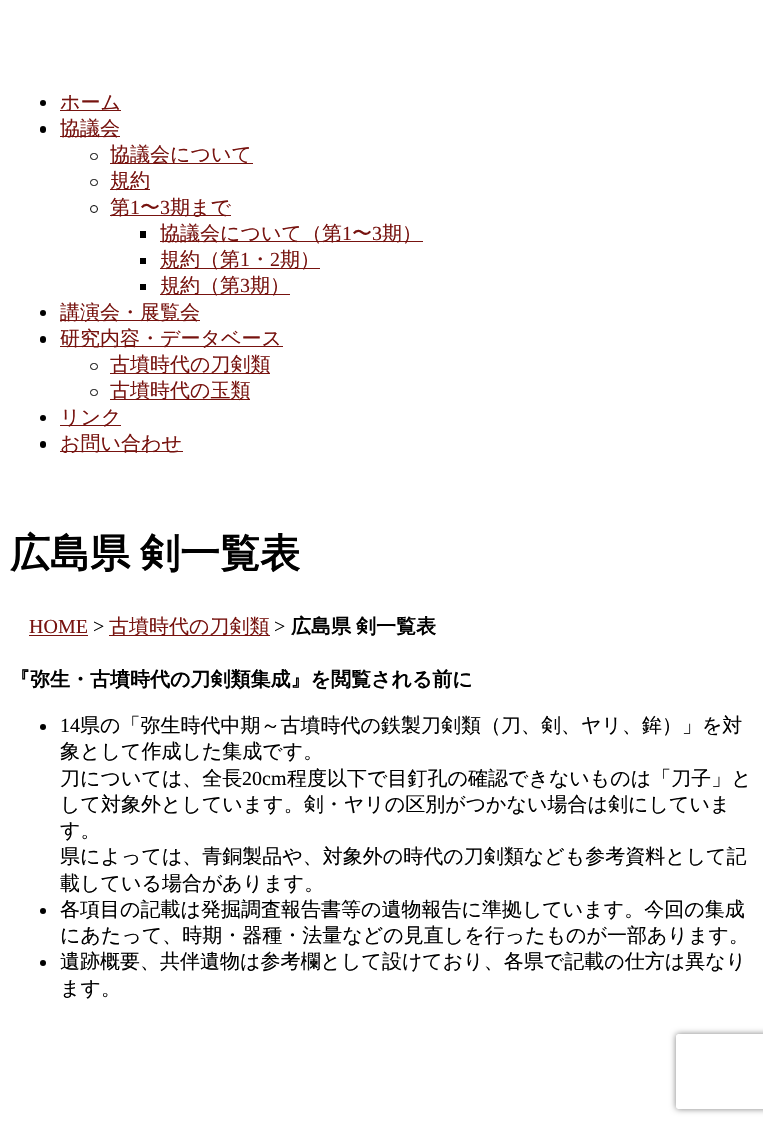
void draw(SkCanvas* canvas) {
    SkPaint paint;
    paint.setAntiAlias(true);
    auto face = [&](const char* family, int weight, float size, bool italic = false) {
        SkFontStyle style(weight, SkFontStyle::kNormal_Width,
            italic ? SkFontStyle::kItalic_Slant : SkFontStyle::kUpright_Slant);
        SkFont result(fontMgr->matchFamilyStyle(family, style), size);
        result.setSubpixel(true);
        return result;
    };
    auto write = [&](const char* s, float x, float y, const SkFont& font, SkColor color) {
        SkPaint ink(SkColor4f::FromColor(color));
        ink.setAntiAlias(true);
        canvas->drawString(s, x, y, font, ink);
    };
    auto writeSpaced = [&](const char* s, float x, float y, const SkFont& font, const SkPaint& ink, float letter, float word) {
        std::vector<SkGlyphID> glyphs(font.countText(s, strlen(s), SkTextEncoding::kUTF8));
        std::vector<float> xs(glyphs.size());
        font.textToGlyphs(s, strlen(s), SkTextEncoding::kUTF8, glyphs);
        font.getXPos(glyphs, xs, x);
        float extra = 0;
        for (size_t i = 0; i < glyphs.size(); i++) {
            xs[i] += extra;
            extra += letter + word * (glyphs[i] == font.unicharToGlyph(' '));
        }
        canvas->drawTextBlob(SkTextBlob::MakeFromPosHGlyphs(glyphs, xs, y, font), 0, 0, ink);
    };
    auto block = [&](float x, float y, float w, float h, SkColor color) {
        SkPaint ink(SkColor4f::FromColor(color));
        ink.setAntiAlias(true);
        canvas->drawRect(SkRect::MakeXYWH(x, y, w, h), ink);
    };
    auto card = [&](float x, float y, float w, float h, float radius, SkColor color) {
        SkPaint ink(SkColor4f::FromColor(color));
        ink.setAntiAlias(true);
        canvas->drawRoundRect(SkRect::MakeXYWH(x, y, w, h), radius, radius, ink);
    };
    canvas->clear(SK_ColorWHITE);
    paint.setColor(SK_ColorBLACK);
    canvas->drawCircle(43, 103, 3, paint);
    block(60, 110, 61, 1, SkColorSetRGB(119, 19, 15));
    auto kFont1 = face("WenQuanYi Zen Hei", 500, 20);
    write("ホーム", 60, 109, kFont1, SkColorSetRGB(119, 19, 15));
    card(40, 126, 6, 7, 3, SK_ColorBLACK);
    block(60, 136, 60, 1, SkColorSetRGB(119, 19, 15));
    write("協議会", 60, 135, kFont1, SkColorSetRGB(119, 19, 15));
    paint.setStyle(SkPaint::kStroke_Style);
    paint.setStrokeWidth(1);
    canvas->drawRoundRect(SkRect::MakeXYWH(90.5f, 153.5f, 7, 6), 3, 3, paint);
    block(110, 163, 143, 1, SkColorSetRGB(119, 19, 15));
    write("協議会について", 110, 161, kFont1, SkColorSetRGB(119, 19, 15));
    canvas->drawRoundRect(SkRect::MakeXYWH(90.5f, 179.5f, 7, 6), 3, 3, paint);
    block(110, 189, 40, 1, SkColorSetRGB(119, 19, 15));
    write("規約", 110, 187, kFont1, SkColorSetRGB(119, 19, 15));
    canvas->drawCircle(94, 209, 3.5f, paint);
    block(110, 215, 121, 1, SkColorSetRGB(119, 19, 15));
    write("第", 110, 214, kFont1, SkColorSetRGB(119, 19, 15));
    auto kFont2 = face("Liberation Serif", 400, 20);
    write("1", 130, 214, kFont2, SkColorSetRGB(119, 19, 15));
    write("〜", 140, 214, kFont1, SkColorSetRGB(119, 19, 15));
    write("3", 160, 214, kFont2, SkColorSetRGB(119, 19, 15));
    write("期まで", 170, 214, kFont1, SkColorSetRGB(119, 19, 15));
    block(140, 231, 6, 7, SK_ColorBLACK);
    block(160, 241, 263, 1, SkColorSetRGB(119, 19, 15));
    write("協議会について（第", 160, 240, kFont1, SkColorSetRGB(119, 19, 15));
    write("1", 342, 240, kFont2, SkColorSetRGB(119, 19, 15));
    write("〜", 352, 240, kFont1, SkColorSetRGB(119, 19, 15));
    write("3", 372, 240, kFont2, SkColorSetRGB(119, 19, 15));
    write("期）", 382, 240, kFont1, SkColorSetRGB(119, 19, 15));
    block(140, 258, 6, 6, SK_ColorBLACK);
    block(160, 268, 160, 1, SkColorSetRGB(119, 19, 15));
    write("規約（第", 160, 266, kFont1, SkColorSetRGB(119, 19, 15));
    write("1", 240, 266, kFont2, SkColorSetRGB(119, 19, 15));
    write("・", 250, 266, kFont1, SkColorSetRGB(119, 19, 15));
    write("2", 270, 266, kFont2, SkColorSetRGB(119, 19, 15));
    write("期）", 280, 266, kFont1, SkColorSetRGB(119, 19, 15));
    block(140, 284, 6, 6, SK_ColorBLACK);
    block(160, 294, 130, 1, SkColorSetRGB(119, 19, 15));
    write("規約（第", 160, 292, kFont1, SkColorSetRGB(119, 19, 15));
    write("3", 240, 292, kFont2, SkColorSetRGB(119, 19, 15));
    write("期）", 250, 292, kFont1, SkColorSetRGB(119, 19, 15));
    paint.setStyle(SkPaint::kFill_Style);
    canvas->drawCircle(43, 313, 3, paint);
    block(60, 320, 140, 1, SkColorSetRGB(119, 19, 15));
    write("講演会・展覧会", 60, 319, kFont1, SkColorSetRGB(119, 19, 15));
    card(40, 336, 6, 7, 3, SK_ColorBLACK);
    block(60, 346, 223, 1, SkColorSetRGB(119, 19, 15));
    write("研究内容・データベース", 60, 345, kFont1, SkColorSetRGB(119, 19, 15));
    paint.setStyle(SkPaint::kStroke_Style);
    canvas->drawRoundRect(SkRect::MakeXYWH(90.5f, 363.5f, 7, 6), 3, 3, paint);
    block(110, 373, 160, 1, SkColorSetRGB(119, 19, 15));
    write("古墳時代の刀剣類", 110, 371, kFont1, SkColorSetRGB(119, 19, 15));
    canvas->drawRoundRect(SkRect::MakeXYWH(90.5f, 389.5f, 7, 6), 3, 3, paint);
    block(110, 399, 140, 1, SkColorSetRGB(119, 19, 15));
    write("古墳時代の玉類", 110, 397, kFont1, SkColorSetRGB(119, 19, 15));
    paint.setStyle(SkPaint::kFill_Style);
    canvas->drawCircle(43, 418, 3, paint);
    block(60, 425, 61, 1, SkColorSetRGB(119, 19, 15));
    write("リンク", 60, 424, kFont1, SkColorSetRGB(119, 19, 15));
    card(40, 441, 6, 7, 3, SK_ColorBLACK);
    block(60, 451, 123, 1, SkColorSetRGB(119, 19, 15));
    write("お問い合わせ", 60, 450, kFont1, SkColorSetRGB(119, 19, 15));
    auto kFont3 = face("WenQuanYi Zen Hei", 700, 40);
    writeSpaced("広島県 剣一覧表", 10, 567, kFont3, paint, 0, -2);
    write("HOME", 29, 633, kFont2, SkColorSetRGB(119, 19, 15));
    block(29, 635, 59, 1, SkColorSetRGB(119, 19, 15));
    write(">", 93, 633, kFont2, SK_ColorBLACK);
    block(109, 635, 161, 1, SkColorSetRGB(119, 19, 15));
    write("古墳時代の刀剣類", 109, 633, kFont1, SkColorSetRGB(119, 19, 15));
    write(">", 274, 633, kFont2, SK_ColorBLACK);
    auto kFont4 = face("WenQuanYi Zen Hei", 700, 20);
    writeSpaced("広島県 剣一覧表", 291, 633, kFont4, paint, 0, -1);
    write("『弥生・古墳時代の刀剣類集成』を閲覧される前に", 10, 686, kFont4, SK_ColorBLACK);
    canvas->drawCircle(43, 727, 3, paint);
    write("14", 60, 732, kFont2, SK_ColorBLACK);
    write("県の「弥生時代中期～古墳時代の鉄製刀剣類（刀、剣、ヤリ、鉾）」を対", 80, 732, kFont1, SK_ColorBLACK);
    write("象として作成した集成です。", 60, 758, kFont1, SK_ColorBLACK);
    write("刀については、全長", 60, 785, kFont1, SK_ColorBLACK);
    write("20cm", 242, 785, kFont2, SK_ColorBLACK);
    write("程度以下で目釘孔の確認できないものは「刀子」と", 287, 785, kFont1, SK_ColorBLACK);
    write("して対象外としています。剣・ヤリの区別がつかない場合は剣にしていま", 60, 811, kFont1, SK_ColorBLACK);
    write("す。", 60, 837, kFont1, SK_ColorBLACK);
    write("県によっては、青銅製品や、対象外の時代の刀剣類なども参考資料として記", 60, 863, kFont1, SK_ColorBLACK);
    write("載している場合があります。", 60, 890, kFont1, SK_ColorBLACK);
    canvas->drawCircle(43, 911, 3, paint);
    write("各項目の記載は発掘調査報告書等の遺物報告に準拠しています。今回の集成", 60, 916, kFont1, SK_ColorBLACK);
    write("にあたって、時期・器種・法量などの見直しを行ったものが一部あります。", 60, 942, kFont1, SK_ColorBLACK);
    canvas->drawCircle(43, 963, 3, paint);
    write("遺跡概要、共伴遺物は参考欄として設けており、各県で記載の仕方は異なり", 60, 968, kFont1, SK_ColorBLACK);
    write("ます。", 60, 995, kFont1, SK_ColorBLACK);
    canvas->save();
    canvas->clipPath(SkPathBuilder(SkPathFillType::kEvenOdd).moveTo(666, 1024).lineTo(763, 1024).lineTo(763, 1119).lineTo(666, 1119).close().moveTo(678.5f, 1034).lineTo(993.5f, 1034).cubicTo(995, 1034, 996, 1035, 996, 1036.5f).lineTo(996, 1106.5f).cubicTo(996, 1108, 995, 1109, 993.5f, 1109).lineTo(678.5f, 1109).cubicTo(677, 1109, 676, 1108, 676, 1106.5f).lineTo(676, 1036.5f).cubicTo(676, 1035, 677, 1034, 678.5f, 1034).close().detach(), true);
    paint.setColor(SkColorSetRGB(128, 128, 128));
    paint.setMaskFilter(SkMaskFilter::MakeBlur(kNormal_SkBlurStyle, 3));
    canvas->drawRoundRect(SkRect::MakeXYWH(676, 1034, 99, 75), 2.5f, 2.5f, paint);
    paint.setMaskFilter(nullptr);
    canvas->restore();
}
